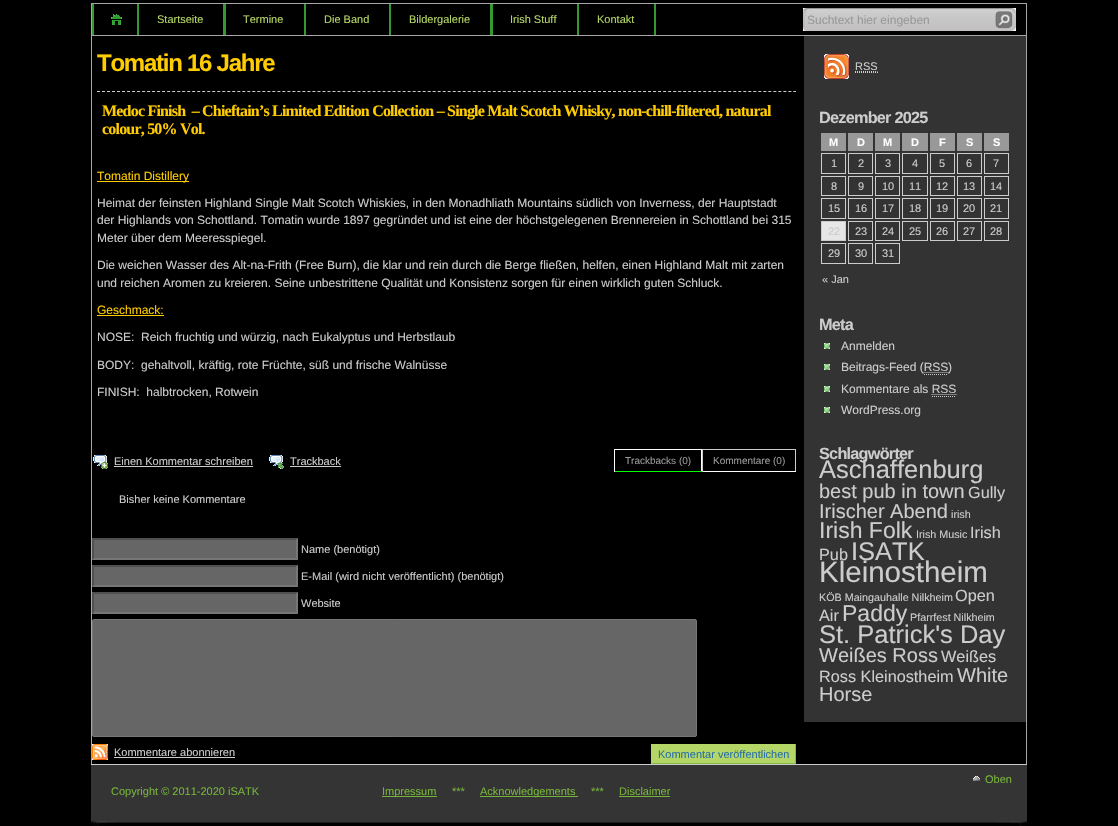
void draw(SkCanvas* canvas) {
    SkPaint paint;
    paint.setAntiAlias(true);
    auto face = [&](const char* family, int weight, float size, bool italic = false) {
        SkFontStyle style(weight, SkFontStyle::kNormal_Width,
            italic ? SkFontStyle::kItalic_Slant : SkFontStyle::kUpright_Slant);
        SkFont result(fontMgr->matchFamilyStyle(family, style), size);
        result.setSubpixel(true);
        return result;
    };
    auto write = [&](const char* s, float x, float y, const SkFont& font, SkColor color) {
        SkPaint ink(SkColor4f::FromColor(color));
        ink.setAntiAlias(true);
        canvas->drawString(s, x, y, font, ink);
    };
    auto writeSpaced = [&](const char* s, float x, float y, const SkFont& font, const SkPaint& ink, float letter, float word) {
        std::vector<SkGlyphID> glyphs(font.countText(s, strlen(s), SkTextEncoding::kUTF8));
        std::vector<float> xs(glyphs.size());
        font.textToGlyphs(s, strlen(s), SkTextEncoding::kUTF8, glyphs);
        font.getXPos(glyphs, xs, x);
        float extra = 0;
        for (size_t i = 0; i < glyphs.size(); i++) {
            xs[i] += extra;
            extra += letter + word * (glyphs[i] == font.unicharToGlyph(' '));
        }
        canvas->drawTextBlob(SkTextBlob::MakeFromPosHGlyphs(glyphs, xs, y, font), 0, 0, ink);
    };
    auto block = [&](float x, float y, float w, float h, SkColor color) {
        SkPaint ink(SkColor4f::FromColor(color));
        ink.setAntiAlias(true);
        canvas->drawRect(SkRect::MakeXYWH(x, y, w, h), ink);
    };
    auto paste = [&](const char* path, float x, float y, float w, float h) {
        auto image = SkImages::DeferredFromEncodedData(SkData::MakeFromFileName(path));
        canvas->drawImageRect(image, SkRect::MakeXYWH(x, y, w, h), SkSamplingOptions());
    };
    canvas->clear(SK_ColorBLACK);
    paint.setStyle(SkPaint::kStroke_Style);
    paint.setStrokeWidth(1);
    paint.setColor(SkColorSetRGB(166, 166, 166));
    canvas->drawRect(SkRect::MakeXYWH(91.5f, 3.5f, 935, 32), paint);
    paste("pic1.png", 92, 4, 30, 31);
    block(137, 4, 2, 31, SkColorSetRGB(51, 153, 51));
    auto kFont1 = face("Liberation Sans", 400, 11);
    write("Startseite", 157, 23, kFont1, SkColorSetRGB(180, 214, 102));
    block(223, 4, 3, 31, SkColorSetRGB(51, 153, 51));
    write("Termine", 243, 23, kFont1, SkColorSetRGB(180, 214, 102));
    block(304, 4, 2, 31, SkColorSetRGB(51, 153, 51));
    write("Die Band", 324, 23, kFont1, SkColorSetRGB(180, 214, 102));
    block(389, 4, 2, 31, SkColorSetRGB(51, 153, 51));
    write("Bildergalerie", 409, 23, kFont1, SkColorSetRGB(180, 214, 102));
    block(490, 4, 3, 31, SkColorSetRGB(51, 153, 51));
    write("Irish Stuff", 510, 23, kFont1, SkColorSetRGB(180, 214, 102));
    block(577, 4, 2, 31, SkColorSetRGB(51, 153, 51));
    write("Kontakt", 597, 23, kFont1, SkColorSetRGB(180, 214, 102));
    block(654, 4, 2, 31, SkColorSetRGB(51, 153, 51));
    paste("pic2.png", 803, 8, 213, 23);
    auto kFont2 = face("Liberation Sans", 400, 12);
    write("Suchtext hier eingeben", 807, 24, kFont2, SkColorSetRGB(153, 153, 153));
    block(1026, 36, 1, 728, SkColorSetRGB(166, 166, 166));
    block(91, 36, 1, 728, SkColorSetRGB(166, 166, 166));
    auto kFont3 = face("Liberation Sans", 700, 24);
    paint.setStyle(SkPaint::kFill_Style);
    paint.setColor(SkColorSetRGB(255, 204, 0));
    writeSpaced("Tomatin 16 Jahre", 97, 71, kFont3, paint, -1.25f, 0);
    paint.setStyle(SkPaint::kStroke_Style);
    paint.setColor(SkColorSetRGB(204, 204, 204));
    paint.setPathEffect(SkDashPathEffect::Make({{3, 2.01f}}, 0));
    canvas->drawPath(SkPathBuilder().moveTo(97, 91.5f).lineTo(796, 91.5f).detach(), paint);
    paint.setPathEffect(nullptr);
    auto kFont4 = face("Liberation Serif", 700, 16);
    paint.setStyle(SkPaint::kFill_Style);
    paint.setColor(SkColorSetRGB(255, 204, 0));
    writeSpaced("Medoc Finish  – Chieftain’s Limited Edition Collection – Single Malt Scotch Whisky, non-chill-filtered, natural", 102, 116, kFont4, paint, -0.8f, 0);
    writeSpaced("colour, 50% Vol.", 102, 134, kFont4, paint, -0.8f, 0);
    block(97, 181, 92, 1, SkColorSetRGB(255, 204, 0));
    write("Tomatin Distillery", 97, 180, kFont2, SkColorSetRGB(255, 204, 0));
    write("Heimat der feinsten Highland Single Malt Scotch Whiskies, in den Monadhliath Mountains südlich von Inverness, der Hauptstadt", 97, 207, kFont2, SkColorSetRGB(204, 204, 204));
    write("der Highlands von Schottland. Tomatin wurde 1897 gegründet und ist eine der höchstgelegenen Brennereien in Schottland bei 315", 97, 224, kFont2, SkColorSetRGB(204, 204, 204));
    write("Meter über dem Meeresspiegel.", 97, 242, kFont2, SkColorSetRGB(204, 204, 204));
    write("Die weichen Wasser des Alt-na-Frith (Free Burn), die klar und rein durch die Berge fließen, helfen, einen Highland Malt mit zarten", 97, 269, kFont2, SkColorSetRGB(204, 204, 204));
    write("und reichen Aromen zu kreieren. Seine unbestrittene Qualität und Konsistenz sorgen für einen wirklich guten Schluck.", 97, 287, kFont2, SkColorSetRGB(204, 204, 204));
    write("Geschmack:", 97, 314, kFont2, SkColorSetRGB(255, 204, 0));
    block(97, 315, 67, 1, SkColorSetRGB(255, 204, 0));
    write("NOSE:  Reich fruchtig und würzig, nach Eukalyptus und Herbstlaub", 97, 341, kFont2, SkColorSetRGB(204, 204, 204));
    write("BODY:  gehaltvoll, kräftig, rote Früchte, süß und frische Walnüsse", 97, 369, kFont2, SkColorSetRGB(204, 204, 204));
    write("FINISH:  halbtrocken, Rotwein", 97, 396, kFont2, SkColorSetRGB(204, 204, 204));
    paste("pic3.png", 93, 455, 15, 14);
    write("Einen Kommentar schreiben", 114, 465, kFont1, SkColorSetRGB(204, 204, 204));
    block(114, 466, 139, 1, SkColorSetRGB(204, 204, 204));
    paste("pic4.png", 269, 455, 15, 14);
    write("Trackback", 290, 465, kFont1, SkColorSetRGB(204, 204, 204));
    block(290, 466, 51, 1, SkColorSetRGB(204, 204, 204));
    block(614, 449, 88, 1, SK_ColorWHITE);
    block(701, 449, 1, 23, SK_ColorWHITE);
    block(614, 471, 88, 1, SkColorSetRGB(0, 255, 0));
    block(614, 449, 1, 23, SK_ColorWHITE);
    auto kFont5 = face("Liberation Sans", 400, 10);
    write("Trackbacks (0)", 625, 464, kFont5, SkColorSetRGB(153, 153, 153));
    block(702, 449, 94, 1, SkColorSetRGB(204, 204, 204));
    block(795, 449, 1, 23, SkColorSetRGB(204, 204, 204));
    block(702, 471, 94, 1, SkColorSetRGB(252, 252, 252));
    block(702, 449, 1, 23, SkColorSetRGB(204, 204, 204));
    write("Kommentare (0)", 713, 464, kFont5, SkColorSetRGB(153, 153, 153));
    write("Bisher keine Kommentare", 119, 503, kFont1, SkColorSetRGB(204, 204, 204));
    block(92, 538, 206, 22, SkColorSetRGB(102, 102, 102));
    paint.setColor(SkColorSetRGB(79, 79, 79));
    canvas->drawPath(SkPathBuilder().moveTo(92, 538).lineTo(298, 538).lineTo(296, 540).lineTo(94, 540).close().detach(), paint);
    paint.setColor(SkColorSetRGB(118, 118, 118));
    canvas->drawPath(SkPathBuilder().moveTo(298, 538).lineTo(298, 560).lineTo(296, 558).lineTo(296, 540).close().detach(), paint);
    canvas->drawPath(SkPathBuilder().moveTo(298, 560).lineTo(92, 560).lineTo(94, 558).lineTo(296, 558).close().detach(), paint);
    paint.setColor(SkColorSetRGB(79, 79, 79));
    canvas->drawPath(SkPathBuilder().moveTo(92, 560).lineTo(92, 538).lineTo(94, 540).lineTo(94, 558).close().detach(), paint);
    write("Name (benötigt)", 301, 553, kFont1, SkColorSetRGB(204, 204, 204));
    block(92, 565, 206, 22, SkColorSetRGB(102, 102, 102));
    canvas->drawPath(SkPathBuilder().moveTo(92, 565).lineTo(298, 565).lineTo(296, 567).lineTo(94, 567).close().detach(), paint);
    paint.setColor(SkColorSetRGB(118, 118, 118));
    canvas->drawPath(SkPathBuilder().moveTo(298, 565).lineTo(298, 587).lineTo(296, 585).lineTo(296, 567).close().detach(), paint);
    canvas->drawPath(SkPathBuilder().moveTo(298, 587).lineTo(92, 587).lineTo(94, 585).lineTo(296, 585).close().detach(), paint);
    paint.setColor(SkColorSetRGB(79, 79, 79));
    canvas->drawPath(SkPathBuilder().moveTo(92, 587).lineTo(92, 565).lineTo(94, 567).lineTo(94, 585).close().detach(), paint);
    write("E-Mail (wird nicht veröffentlicht) (benötigt)", 301, 580, kFont1, SkColorSetRGB(204, 204, 204));
    block(92, 592, 206, 22, SkColorSetRGB(102, 102, 102));
    canvas->drawPath(SkPathBuilder().moveTo(92, 592).lineTo(298, 592).lineTo(296, 594).lineTo(94, 594).close().detach(), paint);
    paint.setColor(SkColorSetRGB(118, 118, 118));
    canvas->drawPath(SkPathBuilder().moveTo(298, 592).lineTo(298, 614).lineTo(296, 612).lineTo(296, 594).close().detach(), paint);
    canvas->drawPath(SkPathBuilder().moveTo(298, 614).lineTo(92, 614).lineTo(94, 612).lineTo(296, 612).close().detach(), paint);
    paint.setColor(SkColorSetRGB(79, 79, 79));
    canvas->drawPath(SkPathBuilder().moveTo(92, 614).lineTo(92, 592).lineTo(94, 594).lineTo(94, 612).close().detach(), paint);
    write("Website", 301, 607, kFont1, SkColorSetRGB(204, 204, 204));
    paint.setColor(SkColorSetRGB(102, 102, 102));
    canvas->drawRoundRect(SkRect::MakeXYWH(92.5f, 619.5f, 604, 117), 1.5f, 1.5f, paint);
    paint.setStyle(SkPaint::kStroke_Style);
    paint.setColor(SkColorSetRGB(118, 118, 118));
    canvas->drawRoundRect(SkRect::MakeXYWH(92.5f, 619.5f, 604, 117), 1.5f, 1.5f, paint);
    paste("pic5.png", 92, 744, 16, 16);
    write("Kommentare abonnieren", 114, 756, kFont1, SkColorSetRGB(204, 204, 204));
    block(114, 757, 121, 1, SkColorSetRGB(204, 204, 204));
    block(652, 744, 143, 19, SkColorSetRGB(180, 214, 102));
    block(795, 744, 1, 20, SkColorSetRGB(129, 184, 64));
    block(651, 763, 145, 1, SkColorSetRGB(129, 184, 64));
    block(651, 744, 1, 20, SkColorSetRGB(180, 214, 102));
    write("Kommentar veröffentlichen", 658, 758, kFont1, SkColorSetRGB(41, 112, 166));
    block(804, 36, 222, 686, SkColorSetRGB(51, 51, 51));
    paste("pic6.png", 824, 54, 25, 25);
    write("RSS", 855, 70, kFont1, SkColorSetRGB(204, 204, 204));
    paint.setColor(SkColorSetRGB(204, 204, 204));
    paint.setPathEffect(SkDashPathEffect::Make({{1, 1}}, 0));
    canvas->drawPath(SkPathBuilder().moveTo(855, 72.5f).lineTo(878, 72.5f).moveTo(855, 71.5f).lineTo(877.5f, 71.5f).detach(), paint);
    paint.setPathEffect(nullptr);
    auto kFont6 = face("Liberation Sans", 700, 16.25f);
    paint.setStyle(SkPaint::kFill_Style);
    writeSpaced("Dezember 2025", 819, 123, kFont6, paint, -0.75f, 0);
    block(821, 133, 25, 18, SkColorSetRGB(153, 153, 153));
    auto kFont7 = face("Liberation Sans", 700, 11);
    write("M", 829, 146, kFont7, SK_ColorWHITE);
    block(848, 133, 25, 18, SkColorSetRGB(153, 153, 153));
    write("D", 857, 146, kFont7, SK_ColorWHITE);
    block(875, 133, 25, 18, SkColorSetRGB(153, 153, 153));
    write("M", 883, 146, kFont7, SK_ColorWHITE);
    block(902, 133, 26, 18, SkColorSetRGB(153, 153, 153));
    write("D", 911, 146, kFont7, SK_ColorWHITE);
    block(930, 133, 25, 18, SkColorSetRGB(153, 153, 153));
    write("F", 939, 146, kFont7, SK_ColorWHITE);
    block(957, 133, 25, 18, SkColorSetRGB(153, 153, 153));
    write("S", 966, 146, kFont7, SK_ColorWHITE);
    block(984, 133, 25, 18, SkColorSetRGB(153, 153, 153));
    write("S", 993, 146, kFont7, SK_ColorWHITE);
    paint.setStyle(SkPaint::kStroke_Style);
    canvas->drawRect(SkRect::MakeXYWH(821.5f, 153.5f, 24, 20), paint);
    write("1", 831, 167, kFont1, SkColorSetRGB(204, 204, 204));
    canvas->drawRect(SkRect::MakeXYWH(848.5f, 153.5f, 24, 20), paint);
    write("2", 858, 167, kFont1, SkColorSetRGB(204, 204, 204));
    canvas->drawRect(SkRect::MakeXYWH(875.5f, 153.5f, 24, 20), paint);
    write("3", 885, 167, kFont1, SkColorSetRGB(204, 204, 204));
    canvas->drawRect(SkRect::MakeXYWH(902.5f, 153.5f, 25, 20), paint);
    write("4", 912, 167, kFont1, SkColorSetRGB(204, 204, 204));
    canvas->drawRect(SkRect::MakeXYWH(930.5f, 153.5f, 24, 20), paint);
    write("5", 939, 167, kFont1, SkColorSetRGB(204, 204, 204));
    canvas->drawRect(SkRect::MakeXYWH(957.5f, 153.5f, 24, 20), paint);
    write("6", 966, 167, kFont1, SkColorSetRGB(204, 204, 204));
    canvas->drawRect(SkRect::MakeXYWH(984.5f, 153.5f, 24, 20), paint);
    write("7", 993, 167, kFont1, SkColorSetRGB(204, 204, 204));
    canvas->drawRect(SkRect::MakeXYWH(821.5f, 176.5f, 24, 19), paint);
    write("8", 831, 190, kFont1, SkColorSetRGB(204, 204, 204));
    canvas->drawRect(SkRect::MakeXYWH(848.5f, 176.5f, 24, 19), paint);
    write("9", 858, 190, kFont1, SkColorSetRGB(204, 204, 204));
    canvas->drawRect(SkRect::MakeXYWH(875.5f, 176.5f, 24, 19), paint);
    write("10", 882, 190, kFont1, SkColorSetRGB(204, 204, 204));
    canvas->drawRect(SkRect::MakeXYWH(902.5f, 176.5f, 25, 19), paint);
    write("11", 909, 190, kFont1, SkColorSetRGB(204, 204, 204));
    canvas->drawRect(SkRect::MakeXYWH(930.5f, 176.5f, 24, 19), paint);
    write("12", 936, 190, kFont1, SkColorSetRGB(204, 204, 204));
    canvas->drawRect(SkRect::MakeXYWH(957.5f, 176.5f, 24, 19), paint);
    write("13", 963, 190, kFont1, SkColorSetRGB(204, 204, 204));
    canvas->drawRect(SkRect::MakeXYWH(984.5f, 176.5f, 24, 19), paint);
    write("14", 990, 190, kFont1, SkColorSetRGB(204, 204, 204));
    canvas->drawRect(SkRect::MakeXYWH(821.5f, 198.5f, 24, 20), paint);
    write("15", 828, 212, kFont1, SkColorSetRGB(204, 204, 204));
    canvas->drawRect(SkRect::MakeXYWH(848.5f, 198.5f, 24, 20), paint);
    write("16", 855, 212, kFont1, SkColorSetRGB(204, 204, 204));
    canvas->drawRect(SkRect::MakeXYWH(875.5f, 198.5f, 24, 20), paint);
    write("17", 882, 212, kFont1, SkColorSetRGB(204, 204, 204));
    canvas->drawRect(SkRect::MakeXYWH(902.5f, 198.5f, 25, 20), paint);
    write("18", 909, 212, kFont1, SkColorSetRGB(204, 204, 204));
    canvas->drawRect(SkRect::MakeXYWH(930.5f, 198.5f, 24, 20), paint);
    write("19", 936, 212, kFont1, SkColorSetRGB(204, 204, 204));
    canvas->drawRect(SkRect::MakeXYWH(957.5f, 198.5f, 24, 20), paint);
    write("20", 963, 212, kFont1, SkColorSetRGB(204, 204, 204));
    canvas->drawRect(SkRect::MakeXYWH(984.5f, 198.5f, 24, 20), paint);
    write("21", 990, 212, kFont1, SkColorSetRGB(204, 204, 204));
    paint.setStyle(SkPaint::kFill_Style);
    paint.setColor(SkColorSetRGB(230, 230, 230));
    canvas->drawRect(SkRect::MakeXYWH(821.5f, 221.5f, 24, 19), paint);
    paint.setStyle(SkPaint::kStroke_Style);
    paint.setColor(SkColorSetRGB(204, 204, 204));
    canvas->drawRect(SkRect::MakeXYWH(821.5f, 221.5f, 24, 19), paint);
    write("22", 828, 235, kFont1, SkColorSetRGB(204, 204, 204));
    canvas->drawRect(SkRect::MakeXYWH(848.5f, 221.5f, 24, 19), paint);
    write("23", 855, 235, kFont1, SkColorSetRGB(204, 204, 204));
    canvas->drawRect(SkRect::MakeXYWH(875.5f, 221.5f, 24, 19), paint);
    write("24", 882, 235, kFont1, SkColorSetRGB(204, 204, 204));
    canvas->drawRect(SkRect::MakeXYWH(902.5f, 221.5f, 25, 19), paint);
    write("25", 909, 235, kFont1, SkColorSetRGB(204, 204, 204));
    canvas->drawRect(SkRect::MakeXYWH(930.5f, 221.5f, 24, 19), paint);
    write("26", 936, 235, kFont1, SkColorSetRGB(204, 204, 204));
    canvas->drawRect(SkRect::MakeXYWH(957.5f, 221.5f, 24, 19), paint);
    write("27", 963, 235, kFont1, SkColorSetRGB(204, 204, 204));
    canvas->drawRect(SkRect::MakeXYWH(984.5f, 221.5f, 24, 19), paint);
    write("28", 990, 235, kFont1, SkColorSetRGB(204, 204, 204));
    canvas->drawRect(SkRect::MakeXYWH(821.5f, 243.5f, 24, 20), paint);
    write("29", 828, 257, kFont1, SkColorSetRGB(204, 204, 204));
    canvas->drawRect(SkRect::MakeXYWH(848.5f, 243.5f, 24, 20), paint);
    write("30", 855, 257, kFont1, SkColorSetRGB(204, 204, 204));
    canvas->drawRect(SkRect::MakeXYWH(875.5f, 243.5f, 24, 20), paint);
    write("31", 882, 257, kFont1, SkColorSetRGB(204, 204, 204));
    write("« Jan", 822, 283, kFont1, SkColorSetRGB(204, 204, 204));
    paint.setStyle(SkPaint::kFill_Style);
    writeSpaced("Meta", 819, 330, kFont6, paint, -0.75f, 0);
    paste("pic7.png", 824, 343, 6, 6);
    write("Anmelden", 841, 350, kFont2, SkColorSetRGB(204, 204, 204));
    paste("pic7.png", 824, 364, 6, 6);
    write("Beitrags-Feed (RSS", 841, 371, kFont2, SkColorSetRGB(204, 204, 204));
    paint.setStyle(SkPaint::kStroke_Style);
    paint.setPathEffect(SkDashPathEffect::Make({{1, 1}}, 0));
    canvas->drawPath(SkPathBuilder().moveTo(924, 374.5f).lineTo(948, 374.5f).moveTo(923.5f, 372.5f).lineTo(948.5f, 372.5f).detach(), paint);
    paint.setPathEffect(nullptr);
    write(")", 948, 371, kFont2, SkColorSetRGB(204, 204, 204));
    paste("pic7.png", 824, 386, 6, 6);
    write("Kommentare als RSS", 841, 393, kFont2, SkColorSetRGB(204, 204, 204));
    paint.setPathEffect(SkDashPathEffect::Make({{1, 1}}, 0));
    canvas->drawPath(SkPathBuilder().moveTo(932, 396.5f).lineTo(956, 396.5f).moveTo(931.5f, 394.5f).lineTo(956.5f, 394.5f).detach(), paint);
    paint.setPathEffect(nullptr);
    paste("pic7.png", 824, 407, 6, 6);
    write("WordPress.org", 841, 414, kFont2, SkColorSetRGB(204, 204, 204));
    paint.setStyle(SkPaint::kFill_Style);
    writeSpaced("Schlagwörter", 819, 459, kFont6, paint, -0.75f, 0);
    auto kFont8 = face("Liberation Sans", 400, 25.5f);
    write("Aschaffenburg", 819, 478, kFont8, SkColorSetRGB(204, 204, 204));
    auto kFont9 = face("Liberation Sans", 400, 20);
    write("best pub in town", 819, 498, kFont9, SkColorSetRGB(204, 204, 204));
    auto kFont10 = face("Liberation Sans", 400, 16.25f);
    write("Gully", 968, 498, kFont10, SkColorSetRGB(204, 204, 204));
    write("Irischer Abend", 819, 518, kFont9, SkColorSetRGB(204, 204, 204));
    auto kFont11 = face("Liberation Sans", 400, 10.75f);
    write("irish", 951, 518, kFont11, SkColorSetRGB(204, 204, 204));
    auto kFont12 = face("Liberation Sans", 400, 23);
    write("Irish Folk", 819, 538, kFont12, SkColorSetRGB(204, 204, 204));
    write("Irish Music", 916, 538, kFont11, SkColorSetRGB(204, 204, 204));
    write("Irish", 970, 538, kFont10, SkColorSetRGB(204, 204, 204));
    write("Pub", 819, 560, kFont10, SkColorSetRGB(204, 204, 204));
    write("ISATK", 851, 560, kFont8, SkColorSetRGB(204, 204, 204));
    auto kFont13 = face("Liberation Sans", 400, 29.5f);
    write("Kleinostheim", 819, 582, kFont13, SkColorSetRGB(204, 204, 204));
    write("KÖB Maingauhalle Nilkheim", 819, 601, kFont11, SkColorSetRGB(204, 204, 204));
    write("Open", 955, 601, kFont10, SkColorSetRGB(204, 204, 204));
    write("Air", 819, 621, kFont10, SkColorSetRGB(204, 204, 204));
    write("Paddy", 842, 621, kFont12, SkColorSetRGB(204, 204, 204));
    write("Pfarrfest Nilkheim", 910, 621, kFont11, SkColorSetRGB(204, 204, 204));
    write("St. Patrick's Day", 819, 643, kFont8, SkColorSetRGB(204, 204, 204));
    write("Weißes Ross", 819, 662, kFont9, SkColorSetRGB(204, 204, 204));
    write("Weißes", 941, 662, kFont10, SkColorSetRGB(204, 204, 204));
    write("Ross Kleinostheim", 819, 682, kFont10, SkColorSetRGB(204, 204, 204));
    write("White", 957, 682, kFont9, SkColorSetRGB(204, 204, 204));
    write("Horse", 819, 701, kFont9, SkColorSetRGB(204, 204, 204));
    paste("pic8.png", 91, 765, 936, 61);
    block(91, 764, 936, 1, SkColorSetRGB(204, 204, 204));
    paste("pic9.png", 973, 776, 7, 5);
    write("Oben", 985, 783, kFont1, SkColorSetRGB(118, 179, 58));
    write("Copyright © 2011-2020 iSATK", 111, 795, kFont1, SkColorSetRGB(118, 179, 58));
    block(382, 796, 55, 1, SkColorSetRGB(118, 179, 58));
    write("Impressum", 382, 795, kFont1, SkColorSetRGB(118, 179, 58));
    write("***", 452, 795, kFont1, SkColorSetRGB(118, 179, 58));
    block(480, 796, 98, 1, SkColorSetRGB(118, 179, 58));
    write("Acknowledgements", 480, 795, kFont1, SkColorSetRGB(118, 179, 58));
    write("***", 591, 795, kFont1, SkColorSetRGB(118, 179, 58));
    write("Disclaimer", 619, 795, kFont1, SkColorSetRGB(118, 179, 58));
    block(619, 796, 51, 1, SkColorSetRGB(118, 179, 58));
}
